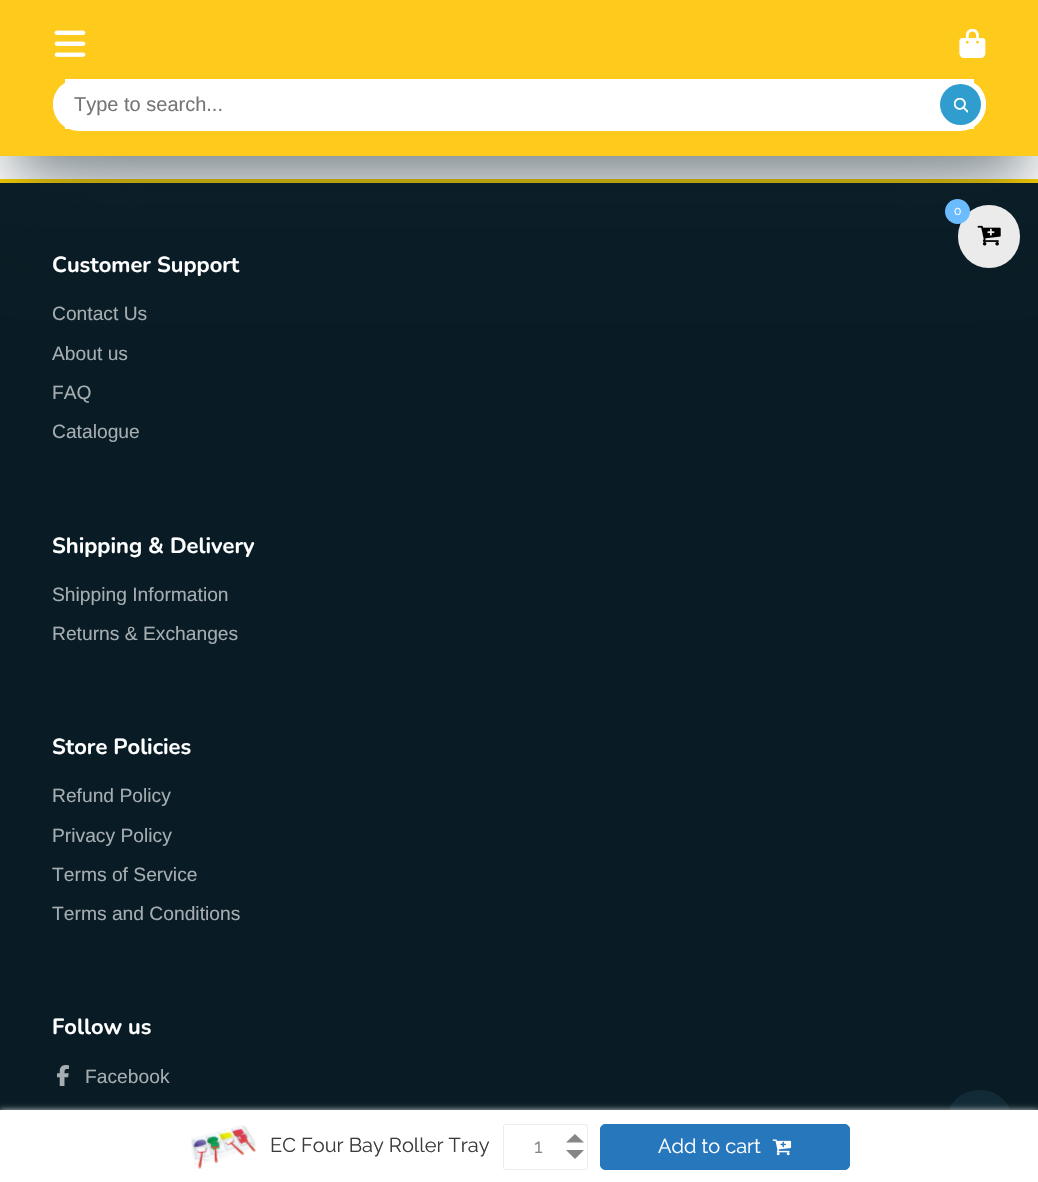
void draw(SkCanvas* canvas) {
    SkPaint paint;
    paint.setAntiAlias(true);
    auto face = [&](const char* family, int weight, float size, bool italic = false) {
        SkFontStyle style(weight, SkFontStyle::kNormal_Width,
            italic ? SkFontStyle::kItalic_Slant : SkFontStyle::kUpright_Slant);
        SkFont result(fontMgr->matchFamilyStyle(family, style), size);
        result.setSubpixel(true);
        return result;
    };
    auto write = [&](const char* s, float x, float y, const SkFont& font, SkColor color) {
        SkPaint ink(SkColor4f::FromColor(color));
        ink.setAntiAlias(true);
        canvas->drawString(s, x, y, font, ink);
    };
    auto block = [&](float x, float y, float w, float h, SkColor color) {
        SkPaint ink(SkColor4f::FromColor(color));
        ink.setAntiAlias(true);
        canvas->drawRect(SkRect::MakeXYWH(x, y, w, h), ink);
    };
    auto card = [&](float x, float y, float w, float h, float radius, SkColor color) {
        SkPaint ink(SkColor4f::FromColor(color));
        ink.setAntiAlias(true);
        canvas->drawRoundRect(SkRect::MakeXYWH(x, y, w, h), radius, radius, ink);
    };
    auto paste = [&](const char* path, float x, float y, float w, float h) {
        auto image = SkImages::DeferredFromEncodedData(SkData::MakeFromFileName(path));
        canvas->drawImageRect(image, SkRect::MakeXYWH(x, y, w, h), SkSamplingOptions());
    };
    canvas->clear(SK_ColorWHITE);
    block(0, 183, 1038, 927, SkColorSetRGB(9, 28, 37));
    block(0, 179, 1038, 4, SkColorSetRGB(251, 207, 0));
    paint.setColor(SkColorSetARGB(102, 15, 36, 45));
    paint.setMaskFilter(SkMaskFilter::MakeBlur(kNormal_SkBlurStyle, 24));
    canvas->drawRect(SkRect::MakeXYWH(18, 50, 1003, 121), paint);
    paint.setMaskFilter(nullptr);
    paint.setColor(SkColorSetARGB(77, 15, 36, 45));
    paint.setMaskFilter(SkMaskFilter::MakeBlur(kNormal_SkBlurStyle, 54.5f));
    canvas->drawRect(SkRect::MakeXYWH(18, 73, 1003, 121), paint);
    paint.setMaskFilter(nullptr);
    block(0, 0, 1038, 156, SkColorSetRGB(254, 202, 27));
    paste("pic1.png", 54, 30, 32, 27);
    paste("pic2.png", 959, 29, 27, 29);
    card(53, 79, 933, 50, 25, SK_ColorWHITE);
    block(65, 79, 909, 50, SK_ColorWHITE);
    card(53, 79, 933, 52, 26, SK_ColorWHITE);
    auto kFont1 = face("Liberation Sans", 400, 20);
    write("Type to search...", 74, 111, kFont1, SkColorSetRGB(117, 117, 117));
    paint.setColor(SkColorSetRGB(47, 158, 207));
    canvas->drawCircle(960.5f, 104.5f, 20.5f, paint);
    paste("pic3.png", 954, 98, 14, 15);
    auto kFont2 = face("Nunito", 700, 21.9f);
    write("Customer Support", 52, 272, kFont2, SK_ColorWHITE);
    auto kFont3 = face("Liberation Sans", 400, 19.25f);
    write("Contact Us", 52, 320, kFont3, SkColorSetRGB(166, 173, 177));
    write("About us", 52, 360, kFont3, SkColorSetRGB(166, 173, 177));
    write("FAQ", 52, 399, kFont3, SkColorSetRGB(166, 173, 177));
    write("Catalogue", 52, 438, kFont3, SkColorSetRGB(166, 173, 177));
    write("Shipping & Delivery", 52, 553, kFont2, SK_ColorWHITE);
    write("Shipping Information", 52, 601, kFont3, SkColorSetRGB(166, 173, 177));
    write("Returns & Exchanges", 52, 640, kFont3, SkColorSetRGB(166, 173, 177));
    write("Store Policies", 52, 754, kFont2, SK_ColorWHITE);
    write("Refund Policy", 52, 802, kFont3, SkColorSetRGB(166, 173, 177));
    write("Privacy Policy", 52, 842, kFont3, SkColorSetRGB(166, 173, 177));
    write("Terms of Service", 52, 881, kFont3, SkColorSetRGB(166, 173, 177));
    write("Terms and Conditions", 52, 920, kFont3, SkColorSetRGB(166, 173, 177));
    write("Follow us", 52, 1034, kFont2, SK_ColorWHITE);
    paste("pic4.png", 57, 1065, 12, 21);
    write("Facebook", 85, 1083, kFont3, SkColorSetRGB(166, 173, 177));
    card(958, 205, 62, 63, 31, SkColorSetRGB(235, 235, 235));
    paint.setColor(SkColorSetRGB(107, 187, 255));
    canvas->drawCircle(957.5f, 211.5f, 12.5f, paint);
    auto kFont4 = face("Raleway", 100, 12);
    write("0", 954, 215, kFont4, SK_ColorWHITE);
    paste("pic5.png", 977, 225, 24, 21);
    card(946, 1090, 67, 66, 33, SkColorSetRGB(17, 43, 54));
    paint.setColor(SkColorSetRGB(205, 205, 205));
    paint.setMaskFilter(SkMaskFilter::MakeBlur(kNormal_SkBlurStyle, 3));
    canvas->drawRect(SkRect::MakeXYWH(0, 1110, 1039, 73), paint);
    paint.setMaskFilter(nullptr);
    block(0, 1110, 1038, 72, SK_ColorWHITE);
    paste("pic6.png", 191, 1125, 66, 44);
    auto kFont5 = face("Raleway", 100, 20);
    write("EC Four Bay Roller Tray", 270, 1152, kFont5, SkColorSetRGB(59, 59, 59));
    paint.setStyle(SkPaint::kStroke_Style);
    paint.setStrokeWidth(1);
    paint.setColor(SkColorSetRGB(236, 236, 236));
    canvas->drawRoundRect(SkRect::MakeXYWH(503.5f, 1124.5f, 84, 45), 2, 2, paint);
    write("1", 534, 1153, kFont5, SkColorSetRGB(134, 134, 134));
    paint.setStyle(SkPaint::kFill_Style);
    paint.setColor(SkColorSetRGB(134, 134, 134));
    canvas->drawPath(SkPathBuilder().moveTo(584, 1142.5f).lineTo(566, 1142.5f).lineTo(575, 1134).close().moveTo(566, 1150).lineTo(584, 1150).lineTo(575, 1159).close().detach(), paint);
    paint.setColor(SkColorSetRGB(39, 119, 188));
    canvas->drawRoundRect(SkRect::MakeXYWH(600.5f, 1124.5f, 249, 45), 4.5f, 4.5f, paint);
    paint.setStyle(SkPaint::kStroke_Style);
    canvas->drawRoundRect(SkRect::MakeXYWH(600.5f, 1124.5f, 249, 45), 4.5f, 4.5f, paint);
    write("Add to cart", 658, 1153, kFont5, SK_ColorWHITE);
    paste("pic7.png", 772, 1139, 20, 17);
}
